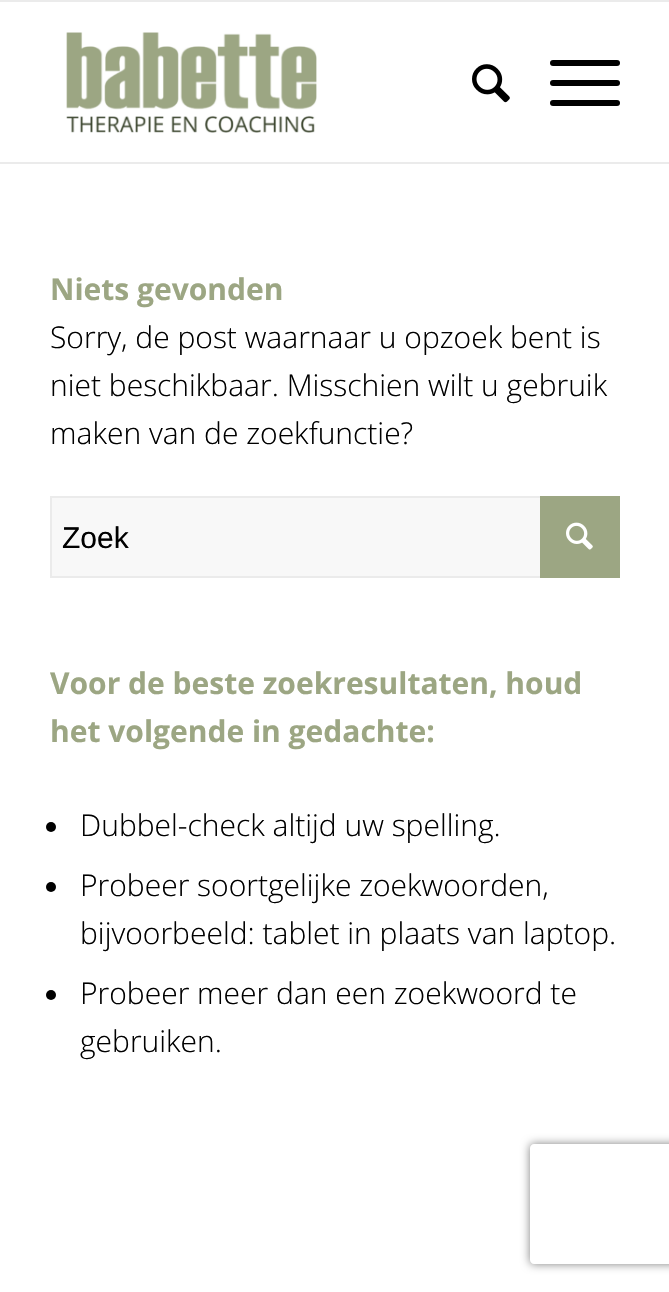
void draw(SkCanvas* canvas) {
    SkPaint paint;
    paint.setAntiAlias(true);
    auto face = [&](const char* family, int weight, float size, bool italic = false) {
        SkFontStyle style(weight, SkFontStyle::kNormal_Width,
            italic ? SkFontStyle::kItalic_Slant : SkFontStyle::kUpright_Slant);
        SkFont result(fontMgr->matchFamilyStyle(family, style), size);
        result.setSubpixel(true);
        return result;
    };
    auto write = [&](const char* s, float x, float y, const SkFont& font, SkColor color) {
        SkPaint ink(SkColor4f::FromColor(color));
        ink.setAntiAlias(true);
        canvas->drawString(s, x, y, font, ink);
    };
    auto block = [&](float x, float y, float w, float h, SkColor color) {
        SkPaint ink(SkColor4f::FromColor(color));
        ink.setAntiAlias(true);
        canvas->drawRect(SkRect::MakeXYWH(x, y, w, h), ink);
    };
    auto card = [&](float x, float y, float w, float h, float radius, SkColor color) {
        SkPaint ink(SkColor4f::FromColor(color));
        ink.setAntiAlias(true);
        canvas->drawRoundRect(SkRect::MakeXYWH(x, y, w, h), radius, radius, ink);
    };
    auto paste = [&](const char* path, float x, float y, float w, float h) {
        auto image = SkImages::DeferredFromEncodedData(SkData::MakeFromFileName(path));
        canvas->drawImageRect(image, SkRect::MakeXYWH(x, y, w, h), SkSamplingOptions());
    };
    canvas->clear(SK_ColorWHITE);
    block(0, 0, 669, 2, SkColorSetRGB(235, 235, 235));
    block(0, 162, 669, 2, SkColorSetRGB(235, 235, 235));
    paste("pic1.png", 66, 32, 251, 101);
    paste("pic2.png", 472, 64, 38, 39);
    card(550, 80, 70, 6, 3, SK_ColorBLACK);
    card(550, 60, 70, 6, 3, SK_ColorBLACK);
    card(550, 100, 70, 6, 3, SK_ColorBLACK);
    auto kFont1 = face("Open Sans", 700, 30);
    write("Niets gevonden", 50, 300, kFont1, SkColorSetRGB(156, 166, 131));
    auto kFont2 = face("Open Sans", 300, 30);
    write("Sorry, de post waarnaar u opzoek bent is", 50, 348, kFont2, SK_ColorBLACK);
    write("niet beschikbaar. Misschien wilt u gebruik", 50, 396, kFont2, SK_ColorBLACK);
    write("maken van de zoekfunctie?", 50, 444, kFont2, SK_ColorBLACK);
    block(52, 498, 488, 78, SkColorSetRGB(248, 248, 248));
    paint.setStyle(SkPaint::kStroke_Style);
    paint.setStrokeWidth(2);
    paint.setColor(SkColorSetRGB(235, 235, 235));
    canvas->drawRect(SkRect::MakeXYWH(51, 497, 568, 80), paint);
    auto kFont3 = face("Liberation Sans", 400, 30);
    write("Zoek", 62, 548, kFont3, SK_ColorBLACK);
    block(540, 496, 80, 82, SkColorSetRGB(156, 166, 131));
    paste("pic3.png", 566, 522, 27, 28);
    write("Voor de beste zoekresultaten, houd", 50, 694, kFont1, SkColorSetRGB(156, 166, 131));
    write("het volgende in gedachte:", 50, 742, kFont1, SkColorSetRGB(156, 166, 131));
    paint.setStyle(SkPaint::kFill_Style);
    paint.setColor(SK_ColorBLACK);
    canvas->drawCircle(51, 827, 5, paint);
    write("Dubbel-check altijd uw spelling.", 80, 836, kFont2, SK_ColorBLACK);
    canvas->drawCircle(51, 887, 5, paint);
    write("Probeer soortgelijke zoekwoorden,", 80, 896, kFont2, SK_ColorBLACK);
    write("bijvoorbeeld: tablet in plaats van laptop.", 80, 944, kFont2, SK_ColorBLACK);
    canvas->drawCircle(51, 995, 5, paint);
    write("Probeer meer dan een zoekwoord te", 80, 1004, kFont2, SK_ColorBLACK);
    write("gebruiken.", 80, 1052, kFont2, SK_ColorBLACK);
    canvas->save();
    canvas->clipPath(SkPathBuilder(SkPathFillType::kEvenOdd).moveTo(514, 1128).lineTo(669, 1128).lineTo(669, 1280).lineTo(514, 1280).close().moveTo(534, 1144).lineTo(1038, 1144).cubicTo(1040, 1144, 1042, 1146, 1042, 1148).lineTo(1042, 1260).cubicTo(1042, 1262, 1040, 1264, 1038, 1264).lineTo(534, 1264).cubicTo(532, 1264, 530, 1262, 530, 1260).lineTo(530, 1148).cubicTo(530, 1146, 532, 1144, 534, 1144).close().detach(), true);
    paint.setColor(SkColorSetRGB(128, 128, 128));
    paint.setMaskFilter(SkMaskFilter::MakeBlur(kNormal_SkBlurStyle, 5));
    canvas->drawRoundRect(SkRect::MakeXYWH(530, 1144, 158, 120), 4, 4, paint);
    paint.setMaskFilter(nullptr);
    canvas->restore();
}
